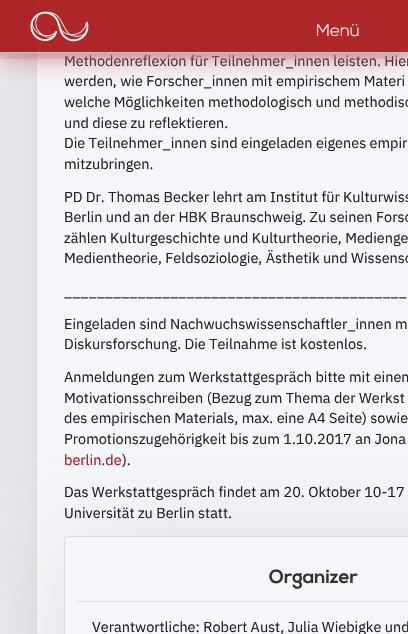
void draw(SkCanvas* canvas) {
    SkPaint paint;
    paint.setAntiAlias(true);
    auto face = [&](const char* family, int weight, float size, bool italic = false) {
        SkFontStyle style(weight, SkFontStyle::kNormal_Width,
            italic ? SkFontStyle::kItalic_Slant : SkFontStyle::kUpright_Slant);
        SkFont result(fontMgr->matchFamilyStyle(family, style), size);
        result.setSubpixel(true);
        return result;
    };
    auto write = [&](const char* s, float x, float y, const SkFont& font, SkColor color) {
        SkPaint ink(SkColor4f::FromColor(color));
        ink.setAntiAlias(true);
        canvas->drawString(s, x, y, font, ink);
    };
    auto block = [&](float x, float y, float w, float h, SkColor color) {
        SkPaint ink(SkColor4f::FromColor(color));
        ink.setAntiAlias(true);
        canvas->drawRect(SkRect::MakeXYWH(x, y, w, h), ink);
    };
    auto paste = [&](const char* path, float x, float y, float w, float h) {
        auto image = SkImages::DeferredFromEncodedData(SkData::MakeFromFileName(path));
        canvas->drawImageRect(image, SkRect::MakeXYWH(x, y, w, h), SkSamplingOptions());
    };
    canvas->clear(SkColorSetRGB(235, 236, 240));
    paint.setColor(SkColorSetARGB(102, 180, 180, 180));
    paint.setMaskFilter(SkMaskFilter::MakeBlur(kNormal_SkBlurStyle, 50));
    canvas->drawRect(SkRect::MakeXYWH(46, -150, 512, 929), paint);
    paint.setMaskFilter(nullptr);
    paint.setColor(SkColorSetRGB(245, 246, 250));
    canvas->drawRect(SkRect::MakeXYWH(36.5f, -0.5f, 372, 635), paint);
    paint.setStyle(SkPaint::kStroke_Style);
    paint.setStrokeWidth(1);
    paint.setColor(SkColorSetRGB(221, 221, 221));
    canvas->drawRect(SkRect::MakeXYWH(36.5f, -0.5f, 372, 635), paint);
    auto kFont1 = face("IBM Plex Sans", 400, 14.45f);
    write("Methodenreflexion für Teilnehmer_innen leisten. Hier", 64, 66, kFont1, SkColorSetRGB(29, 31, 38));
    block(0, 53, 408, 6, SkColorSetARGB(51, 200, 100, 100));
    canvas->save();
    canvas->clipRect(SkRect::MakeXYWH(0, 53, 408, 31));
    paint.setStyle(SkPaint::kFill_Style);
    paint.setColor(SkColorSetRGB(200, 100, 100));
    paint.setMaskFilter(SkMaskFilter::MakeBlur(kNormal_SkBlurStyle, 15));
    canvas->drawRect(SkRect::MakeXYWH(0, 0, 408, 53), paint);
    paint.setMaskFilter(nullptr);
    canvas->restore();
    block(0, 0, 408, 52, SkColorSetARGB(214, 161, 0, 0));
    block(0, 52, 408, 1, SkColorSetRGB(192, 192, 192));
    paste("pic1.png", 30, 11, 59, 31);
    auto kFont2 = face("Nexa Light", 300, 17);
    write("Menü", 316, 36, kFont2, SkColorSetRGB(250, 255, 255));
    write("werden, wie Forscher_innen mit empirischem Materi", 64, 86, kFont1, SkColorSetRGB(29, 31, 38));
    write("welche Möglichkeiten methodologisch und methodisc", 64, 107, kFont1, SkColorSetRGB(29, 31, 38));
    write("und diese zu reflektieren.", 64, 128, kFont1, SkColorSetRGB(29, 31, 38));
    write("Die Teilnehmer_innen sind eingeladen eigenes empir", 64, 148, kFont1, SkColorSetRGB(29, 31, 38));
    write("mitzubringen.", 64, 169, kFont1, SkColorSetRGB(29, 31, 38));
    write("PD Dr. Thomas Becker lehrt am Institut für Kulturwiss", 64, 202, kFont1, SkColorSetRGB(29, 31, 38));
    write("Berlin und an der HBK Braunschweig. Zu seinen Forsc", 64, 222, kFont1, SkColorSetRGB(29, 31, 38));
    write("zählen Kulturgeschichte und Kulturtheorie, Medienge", 64, 243, kFont1, SkColorSetRGB(29, 31, 38));
    write("Medientheorie, Feldsoziologie, Ästhetik und Wissensc", 64, 263, kFont1, SkColorSetRGB(29, 31, 38));
    write("__________________________________________", 64, 296, kFont1, SkColorSetRGB(29, 31, 38));
    write("Eingeladen sind Nachwuchswissenschaftler_innen m", 64, 329, kFont1, SkColorSetRGB(29, 31, 38));
    write("Diskursforschung. Die Teilnahme ist kostenlos.", 64, 349, kFont1, SkColorSetRGB(29, 31, 38));
    write("Anmeldungen zum Werkstattgespräch bitte mit einem", 64, 382, kFont1, SkColorSetRGB(29, 31, 38));
    canvas->save();
    canvas->clipPath(SkPathBuilder(SkPathFillType::kEvenOdd).moveTo(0, 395).lineTo(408, 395).lineTo(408, 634).lineTo(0, 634).close().moveTo(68, 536).lineTo(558, 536).cubicTo(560, 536, 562, 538, 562, 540).lineTo(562, 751).cubicTo(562, 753, 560, 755, 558, 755).lineTo(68, 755).cubicTo(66, 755, 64, 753, 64, 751).lineTo(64, 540).cubicTo(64, 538, 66, 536, 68, 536).close().detach(), true);
    paint.setColor(SkColorSetARGB(102, 180, 180, 180));
    paint.setMaskFilter(SkMaskFilter::MakeBlur(kNormal_SkBlurStyle, 50));
    canvas->drawRect(SkRect::MakeXYWH(74, 546, 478, 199), paint);
    paint.setMaskFilter(nullptr);
    canvas->restore();
    write("Motivationsschreiben (Bezug zum Thema der Werkst", 64, 403, kFont1, SkColorSetRGB(29, 31, 38));
    write("des empirischen Materials, max. eine A4 Seite) sowie", 64, 423, kFont1, SkColorSetRGB(29, 31, 38));
    write("Promotionszugehörigkeit bis zum 1.10.2017 an Jona", 64, 444, kFont1, SkColorSetRGB(29, 31, 38));
    write("berlin.de", 64, 465, kFont1, SkColorSetRGB(169, 20, 25));
    write(").", 122, 465, kFont1, SkColorSetRGB(29, 31, 38));
    write("Das Werkstattgespräch findet am 20. Oktober 10-17", 64, 497, kFont1, SkColorSetRGB(29, 31, 38));
    write("Universität zu Berlin statt.", 64, 518, kFont1, SkColorSetRGB(29, 31, 38));
    paint.setStyle(SkPaint::kStroke_Style);
    paint.setColor(SkColorSetRGB(221, 221, 221));
    canvas->drawRoundRect(SkRect::MakeXYWH(64.5f, 536.5f, 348, 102), 3.5f, 3.5f, paint);
    block(77, 601, 331, 1, SkColorSetRGB(221, 221, 221));
    auto kFont3 = face("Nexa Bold", 700, 19);
    write("Organizer", 269, 583, kFont3, SkColorSetRGB(51, 51, 51));
    write("Verantwortliche: Robert Aust, Julia Wiebigke und", 92, 632, kFont1, SkColorSetRGB(29, 31, 38));
}
